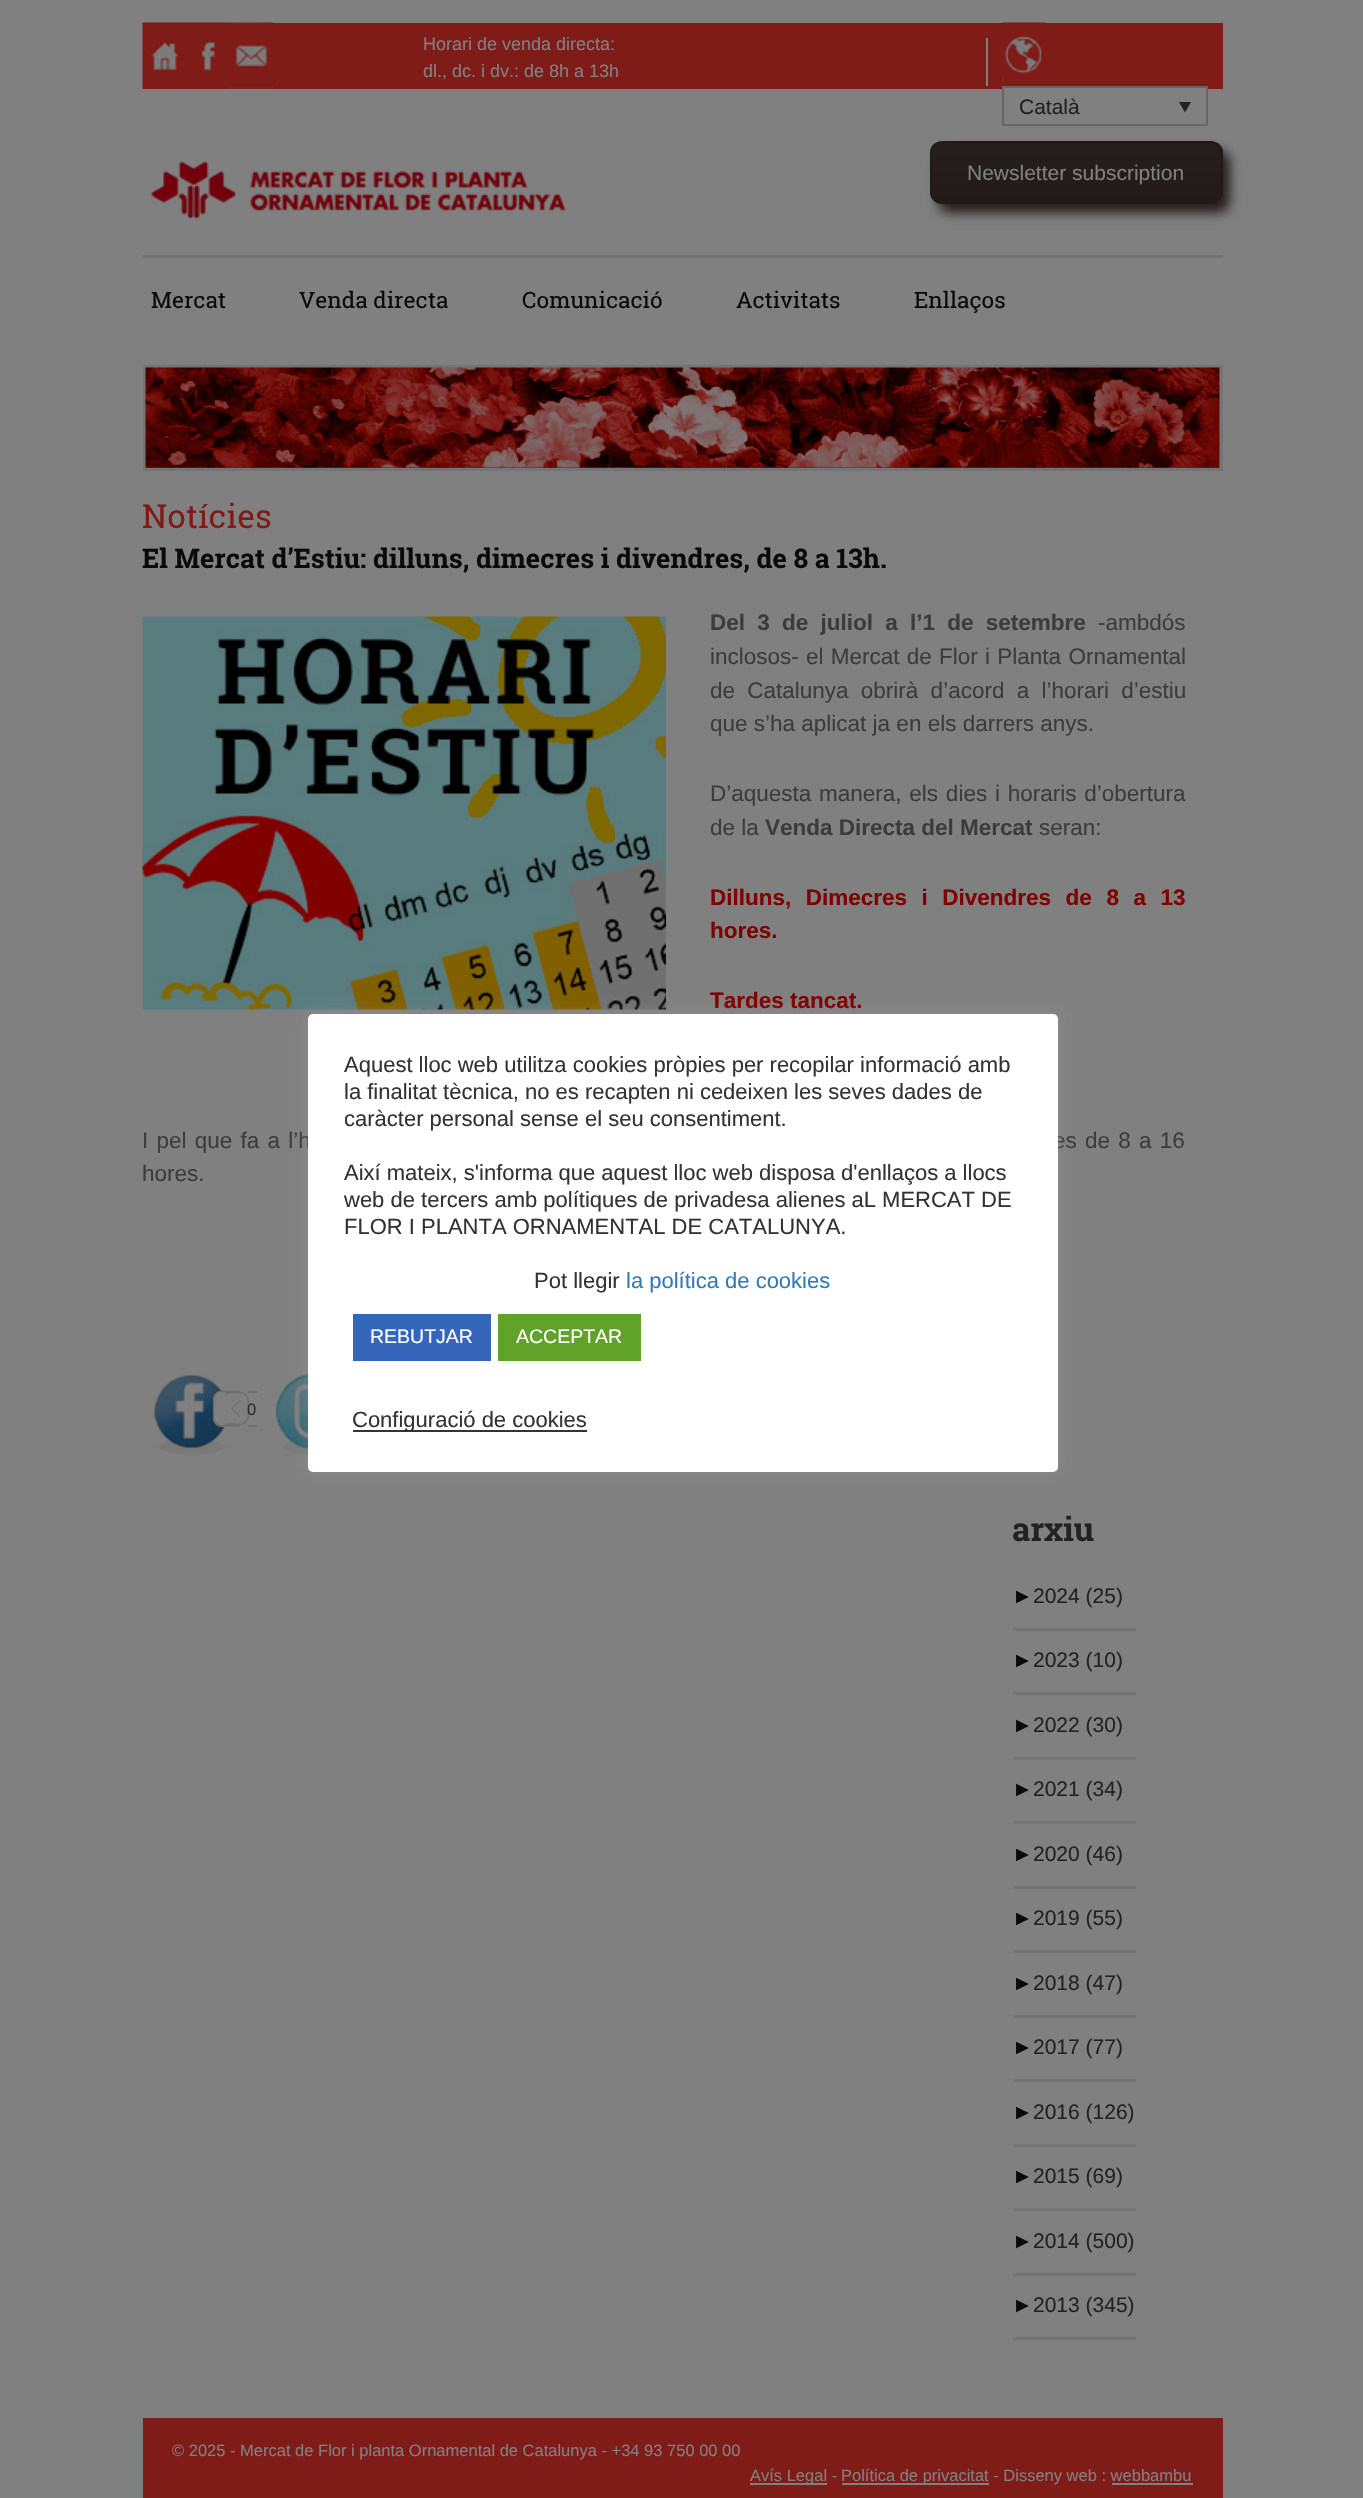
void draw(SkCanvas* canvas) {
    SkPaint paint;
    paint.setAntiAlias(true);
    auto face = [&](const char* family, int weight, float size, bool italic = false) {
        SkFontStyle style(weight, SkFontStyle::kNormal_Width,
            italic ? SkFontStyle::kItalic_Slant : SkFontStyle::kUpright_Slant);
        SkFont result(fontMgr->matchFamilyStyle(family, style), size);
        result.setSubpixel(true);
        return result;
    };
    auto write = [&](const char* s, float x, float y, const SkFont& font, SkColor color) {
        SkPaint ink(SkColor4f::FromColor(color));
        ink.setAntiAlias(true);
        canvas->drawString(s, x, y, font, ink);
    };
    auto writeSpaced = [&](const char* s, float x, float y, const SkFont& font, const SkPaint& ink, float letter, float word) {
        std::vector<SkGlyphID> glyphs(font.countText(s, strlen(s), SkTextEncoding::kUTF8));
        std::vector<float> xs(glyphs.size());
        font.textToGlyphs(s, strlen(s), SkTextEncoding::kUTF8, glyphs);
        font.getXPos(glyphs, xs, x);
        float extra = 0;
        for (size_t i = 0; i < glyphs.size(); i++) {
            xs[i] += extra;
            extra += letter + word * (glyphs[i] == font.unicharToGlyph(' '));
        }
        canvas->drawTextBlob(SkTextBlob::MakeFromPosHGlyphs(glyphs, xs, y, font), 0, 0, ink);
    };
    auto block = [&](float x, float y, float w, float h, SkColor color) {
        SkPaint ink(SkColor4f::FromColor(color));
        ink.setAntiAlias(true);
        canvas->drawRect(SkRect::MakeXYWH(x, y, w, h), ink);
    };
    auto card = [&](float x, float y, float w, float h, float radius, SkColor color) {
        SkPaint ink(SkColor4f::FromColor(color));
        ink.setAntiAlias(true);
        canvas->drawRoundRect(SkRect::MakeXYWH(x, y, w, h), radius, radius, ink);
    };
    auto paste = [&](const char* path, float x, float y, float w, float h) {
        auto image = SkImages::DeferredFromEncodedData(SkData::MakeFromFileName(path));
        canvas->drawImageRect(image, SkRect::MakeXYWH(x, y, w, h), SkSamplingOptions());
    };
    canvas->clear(SkColorSetRGB(128, 128, 128));
    block(143, 23, 1080, 66, SkColorSetRGB(128, 28, 24));
    paste("pic1.png", 142, 22, 44, 67);
    paste("pic2.png", 186, 22, 44, 50);
    paste("pic3.png", 229, 22, 44, 67);
    auto kFont1 = face("Liberation Sans", 400, 18);
    write("Horari de venda directa:", 423, 50, kFont1, SkColorSetRGB(128, 128, 128));
    write("dl., dc. i dv.: de 8h a 13h", 423, 77, kFont1, SkColorSetRGB(128, 128, 128));
    block(986, 38, 2, 48, SkColorSetRGB(128, 128, 128));
    paste("pic4.png", 1002, 22, 44, 64);
    block(1004, 88, 202, 1, SkColorSetRGB(128, 128, 128));
    paint.setStyle(SkPaint::kStroke_Style);
    paint.setStrokeWidth(2);
    paint.setColor(SkColorSetRGB(103, 103, 103));
    canvas->drawRect(SkRect::MakeXYWH(1003, 87, 204, 38), paint);
    auto kFont2 = face("Liberation Sans", 400, 21);
    write("Català", 1019, 114, kFont2, SkColorSetRGB(34, 34, 34));
    paint.setStyle(SkPaint::kFill_Style);
    paint.setColor(SkColorSetRGB(34, 34, 34));
    canvas->drawPath(SkPathBuilder().moveTo(1179, 102).lineTo(1191, 102).lineTo(1185, 112.5f).close().detach(), paint);
    block(143, 255, 1080, 3, SkColorSetRGB(116, 116, 116));
    paste("pic5.png", 151, 161, 415, 59);
    paint.setColor(SkColorSetRGB(36, 30, 29));
    paint.setMaskFilter(SkMaskFilter::MakeBlur(kNormal_SkBlurStyle, 6));
    canvas->drawRoundRect(SkRect::MakeXYWH(938, 150, 292, 63), 12, 12, paint);
    paint.setMaskFilter(nullptr);
    canvas->save();
    canvas->clipPath(SkPathBuilder().moveTo(942, 141).lineTo(1211, 141).cubicTo(1217.5f, 141, 1223, 146.5f, 1223, 153).lineTo(1223, 192).cubicTo(1223, 198.5f, 1217.5f, 204, 1211, 204).lineTo(942, 204).cubicTo(935.5f, 204, 930, 198.5f, 930, 192).lineTo(930, 153).cubicTo(930, 146.5f, 935.5f, 141, 942, 141).close().detach(), true);
    {
        const SkColor colors[] = {SkColorSetRGB(36, 31, 30), SkColorSetRGB(34, 26, 25)};
        const float stops[] = {0, 1};
        const SkPoint ends[] = {{1076, 142}, {1076, 203}};
        paint.setShader(SkGradientShader::MakeLinear(ends, colors, stops, 2, SkTileMode::kClamp));
        paint.setAlpha(255);
    }
    canvas->drawRect(SkRect::MakeXYWH(930, 143, 293, 60), paint);
    canvas->restore();
    paint.setStyle(SkPaint::kStroke_Style);
    paint.setShader(nullptr);
    paint.setColor(SkColorSetRGB(34, 26, 25));
    canvas->drawRoundRect(SkRect::MakeXYWH(931, 142, 291, 61), 11, 11, paint);
    write("Newsletter subscription", 967, 180, kFont2, SkColorSetRGB(128, 128, 128));
    auto kFont3 = face("Roboto Slab", 400, 22.5f);
    write("Mercat", 151, 308, kFont3, SkColorSetRGB(10, 10, 9));
    write("Venda directa", 299, 308, kFont3, SkColorSetRGB(10, 10, 9));
    write("Comunicació", 522, 308, kFont3, SkColorSetRGB(10, 10, 9));
    write("Activitats", 736, 308, kFont3, SkColorSetRGB(10, 10, 9));
    write("Enllaços", 914, 308, kFont3, SkColorSetRGB(10, 10, 9));
    paint.setStrokeWidth(3);
    paint.setColor(SkColorSetRGB(116, 116, 116));
    canvas->drawRect(SkRect::MakeXYWH(144.5f, 366.5f, 1077, 103), paint);
    paste("pic6.png", 145, 367, 1075, 101);
    auto kFont4 = face("Roboto Slab", 400, 33);
    write("Notícies", 142, 528, kFont4, SkColorSetRGB(128, 28, 24));
    auto kFont5 = face("Roboto Slab", 700, 27);
    write("El Mercat d’Estiu: dilluns, dimecres i divendres, de 8 a 13h.", 142, 568, kFont5, SkColorSetRGB(10, 10, 9));
    auto kFont6 = face("Liberation Sans", 700, 22.5f);
    paint.setStyle(SkPaint::kFill_Style);
    paint.setColor(SkColorSetRGB(60, 60, 60));
    writeSpaced("Del 3 de juliol a l’1 de setembre", 710, 630, kFont6, paint, 0, 6);
    auto kFont7 = face("Liberation Sans", 400, 22.5f);
    write("-ambdós", 1098, 630, kFont7, SkColorSetRGB(60, 60, 60));
    writeSpaced("inclosos- el Mercat de Flor i Planta Ornamental", 710, 664, kFont7, paint, 0, 1);
    writeSpaced("de Catalunya obrirà d’acord a l’horari d’estiu", 710, 698, kFont7, paint, 0, 6);
    write("que s’ha aplicat ja en els darrers anys.", 710, 731, kFont7, SkColorSetRGB(60, 60, 60));
    writeSpaced("D’aquesta manera, els dies i horaris d’obertura", 710, 801, kFont7, paint, 0, 1.5f);
    write("de la", 710, 835, kFont7, SkColorSetRGB(60, 60, 60));
    write("Venda Directa del Mercat", 765, 835, kFont6, SkColorSetRGB(60, 60, 60));
    write("seran:", 1039, 835, kFont7, SkColorSetRGB(60, 60, 60));
    paint.setColor(SkColorSetRGB(128, 0, 0));
    writeSpaced("Dilluns, Dimecres i Divendres de 8 a 13", 710, 905, kFont6, paint, 0, 8.25f);
    write("hores.", 710, 938, kFont6, SkColorSetRGB(128, 0, 0));
    write("Tardes tancat.", 710, 1008, kFont6, SkColorSetRGB(128, 0, 0));
    paint.setColor(SkColorSetRGB(60, 60, 60));
    writeSpaced("I pel que fa a l’h", 142, 1148, kFont7, paint, 0, 2);
    writeSpaced("es de 8 a 16", 1053, 1148, kFont7, paint, 0, 2);
    write("hores.", 142, 1181, kFont7, SkColorSetRGB(60, 60, 60));
    paste("pic7.png", 154, 1375, 72, 80);
    paint.setColor(SkColorSetRGB(128, 128, 128));
    canvas->drawPath(SkPathBuilder().moveTo(222, 1391).lineTo(240, 1391).lineTo(240, 1427).lineTo(222, 1427).cubicTo(217, 1427, 213, 1423, 213, 1418).lineTo(213, 1400).cubicTo(213, 1395, 217, 1391, 222, 1391).close().detach(), paint);
    paint.setColor(SkColorSetRGB(112, 111, 111));
    canvas->drawPath(SkPathBuilder(SkPathFillType::kEvenOdd).moveTo(222, 1390.5f).lineTo(240, 1390.5f).lineTo(240, 1426.5f).lineTo(222, 1426.5f).cubicTo(217, 1426.5f, 213, 1422.5f, 213, 1417.5f).lineTo(213, 1399.5f).cubicTo(213, 1394.5f, 217, 1390.5f, 222, 1390.5f).close().moveTo(222, 1392).lineTo(240, 1392).lineTo(240, 1425).lineTo(222, 1425).cubicTo(218, 1425, 214.5f, 1421.5f, 214.5f, 1417.5f).lineTo(214.5f, 1399.5f).cubicTo(214.5f, 1395.5f, 218, 1392, 222, 1392).close().detach(), paint);
    block(248, 1391, 9, 2, SkColorSetRGB(112, 111, 111));
    block(248, 1425, 9, 2, SkColorSetRGB(112, 111, 111));
    canvas->drawPath(SkPathBuilder(SkPathFillType::kEvenOdd).moveTo(225, 1392).lineTo(240, 1392).cubicTo(245, 1392, 249, 1396, 249, 1401).lineTo(249, 1416).cubicTo(249, 1421, 245, 1425, 240, 1425).lineTo(225, 1425).close().moveTo(225, 1393.5f).lineTo(240, 1393.5f).cubicTo(244, 1393.5f, 247.5f, 1397, 247.5f, 1401).lineTo(247.5f, 1416).cubicTo(247.5f, 1420, 244, 1423.5f, 240, 1423.5f).lineTo(225, 1423.5f).close().detach(), paint);
    canvas->drawPath(SkPathBuilder().moveTo(240, 1399.5f).lineTo(240, 1417.5f).lineTo(231, 1408.5f).close().detach(), paint);
    paint.setColor(SkColorSetRGB(128, 128, 128));
    canvas->drawPath(SkPathBuilder().moveTo(240, 1401).lineTo(240, 1416).lineTo(232.5f, 1408.5f).close().detach(), paint);
    auto kFont8 = face("Liberation Sans", 400, 16.5f);
    write("0", 247, 1415, kFont8, SkColorSetRGB(43, 47, 44));
    paste("pic8.png", 275, 1373, 33, 82);
    paste("pic9.png", 142, 616, 524, 394);
    auto kFont9 = face("Roboto Slab", 700, 33);
    write("arxiu", 1012, 1541, kFont9, SkColorSetRGB(34, 34, 34));
    block(1013, 1628, 123, 3, SkColorSetRGB(116, 116, 116));
    write("►", 1012, 1603, kFont2, SkColorSetRGB(10, 10, 9));
    write("2024 (25)", 1033, 1603, kFont2, SkColorSetRGB(34, 34, 34));
    block(1013, 1692, 123, 3, SkColorSetRGB(116, 116, 116));
    write("►", 1012, 1667, kFont2, SkColorSetRGB(10, 10, 9));
    write("2023 (10)", 1033, 1667, kFont2, SkColorSetRGB(34, 34, 34));
    block(1013, 1757, 123, 3, SkColorSetRGB(116, 116, 116));
    write("►", 1012, 1732, kFont2, SkColorSetRGB(10, 10, 9));
    write("2022 (30)", 1033, 1732, kFont2, SkColorSetRGB(34, 34, 34));
    block(1013, 1821, 123, 3, SkColorSetRGB(116, 116, 116));
    write("►", 1012, 1796, kFont2, SkColorSetRGB(10, 10, 9));
    write("2021 (34)", 1033, 1796, kFont2, SkColorSetRGB(34, 34, 34));
    block(1013, 1886, 123, 3, SkColorSetRGB(116, 116, 116));
    write("►", 1012, 1861, kFont2, SkColorSetRGB(10, 10, 9));
    write("2020 (46)", 1033, 1861, kFont2, SkColorSetRGB(34, 34, 34));
    block(1013, 1950, 123, 3, SkColorSetRGB(116, 116, 116));
    write("►", 1012, 1925, kFont2, SkColorSetRGB(10, 10, 9));
    write("2019 (55)", 1033, 1925, kFont2, SkColorSetRGB(34, 34, 34));
    block(1013, 2015, 123, 3, SkColorSetRGB(116, 116, 116));
    write("►", 1012, 1990, kFont2, SkColorSetRGB(10, 10, 9));
    write("2018 (47)", 1033, 1990, kFont2, SkColorSetRGB(34, 34, 34));
    block(1013, 2079, 123, 3, SkColorSetRGB(116, 116, 116));
    write("►", 1012, 2054, kFont2, SkColorSetRGB(10, 10, 9));
    write("2017 (77)", 1033, 2054, kFont2, SkColorSetRGB(34, 34, 34));
    block(1013, 2144, 123, 3, SkColorSetRGB(116, 116, 116));
    write("►", 1012, 2119, kFont2, SkColorSetRGB(10, 10, 9));
    write("2016 (126)", 1033, 2119, kFont2, SkColorSetRGB(34, 34, 34));
    block(1013, 2208, 123, 3, SkColorSetRGB(116, 116, 116));
    write("►", 1012, 2183, kFont2, SkColorSetRGB(10, 10, 9));
    write("2015 (69)", 1033, 2183, kFont2, SkColorSetRGB(34, 34, 34));
    block(1013, 2273, 123, 3, SkColorSetRGB(116, 116, 116));
    write("►", 1012, 2248, kFont2, SkColorSetRGB(10, 10, 9));
    write("2014 (500)", 1033, 2248, kFont2, SkColorSetRGB(34, 34, 34));
    block(1013, 2337, 123, 3, SkColorSetRGB(116, 116, 116));
    write("►", 1012, 2312, kFont2, SkColorSetRGB(10, 10, 9));
    write("2013 (345)", 1033, 2312, kFont2, SkColorSetRGB(34, 34, 34));
    paint.setColor(SkColorSetARGB(77, 172, 171, 171));
    paint.setMaskFilter(SkMaskFilter::MakeBlur(kNormal_SkBlurStyle, 7.5f));
    canvas->drawRoundRect(SkRect::MakeXYWH(308, 1013, 750, 457), 5, 5, paint);
    paint.setMaskFilter(nullptr);
    card(308, 1014, 750, 458, 5, SK_ColorWHITE);
    auto kFont10 = face("Liberation Sans", 400, 22);
    write("Aquest lloc web utilitza cookies pròpies per recopilar informació amb", 344, 1072, kFont10, SkColorSetRGB(51, 51, 51));
    write("la finalitat tècnica, no es recapten ni cedeixen les seves dades de", 344, 1099, kFont10, SkColorSetRGB(51, 51, 51));
    write("caràcter personal sense el seu consentiment.", 344, 1126, kFont10, SkColorSetRGB(51, 51, 51));
    write("Així mateix, s'informa que aquest lloc web disposa d'enllaços a llocs", 344, 1180, kFont10, SkColorSetRGB(51, 51, 51));
    write("web de tercers amb polítiques de privadesa alienes aL MERCAT DE", 344, 1207, kFont10, SkColorSetRGB(51, 51, 51));
    write("FLOR I PLANTA ORNAMENTAL DE CATALUNYA.", 344, 1234, kFont10, SkColorSetRGB(51, 51, 51));
    write("Pot llegir", 534, 1288, kFont10, SkColorSetRGB(51, 51, 51));
    write("la política de cookies", 626, 1288, kFont10, SkColorSetRGB(51, 122, 183));
    block(353, 1314, 138, 47, SkColorSetRGB(53, 102, 187));
    auto kFont11 = face("Liberation Sans", 400, 19.5f);
    write("REBUTJAR", 370, 1343, kFont11, SK_ColorWHITE);
    block(498, 1314, 143, 47, SkColorSetRGB(97, 162, 41));
    write("ACCEPTAR", 516, 1343, kFont11, SK_ColorWHITE);
    block(353, 1430, 234, 2, SkColorSetRGB(51, 51, 51));
    write("Configuració de cookies", 352, 1427, kFont10, SkColorSetRGB(51, 51, 51));
    block(143, 2418, 1080, 80, SkColorSetRGB(128, 28, 24));
    write("© 2025 - Mercat de Flor i planta Ornamental de Catalunya - +34 93 750 00 00", 172, 2456, kFont8, SkColorSetRGB(128, 128, 128));
    block(750, 2483, 77, 2, SkColorSetRGB(128, 128, 128));
    write("Avís Legal -", 750, 2481, kFont8, SkColorSetRGB(128, 128, 128));
    block(842, 2483, 147, 2, SkColorSetRGB(128, 128, 128));
    write("Política de privacitat - Disseny web : webbambu", 841, 2481, kFont8, SkColorSetRGB(128, 128, 128));
    block(1112, 2483, 81, 2, SkColorSetRGB(128, 128, 128));
}
